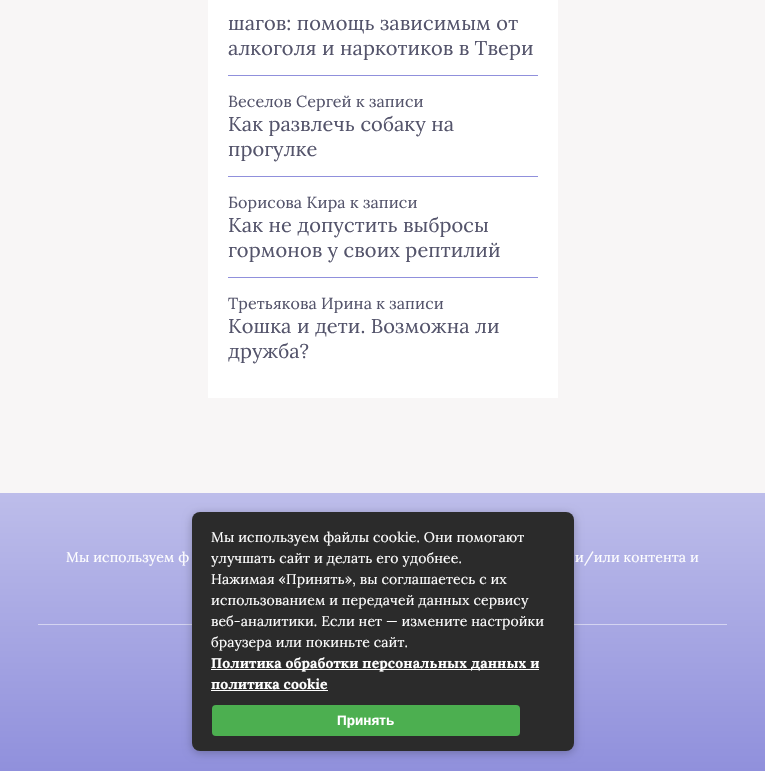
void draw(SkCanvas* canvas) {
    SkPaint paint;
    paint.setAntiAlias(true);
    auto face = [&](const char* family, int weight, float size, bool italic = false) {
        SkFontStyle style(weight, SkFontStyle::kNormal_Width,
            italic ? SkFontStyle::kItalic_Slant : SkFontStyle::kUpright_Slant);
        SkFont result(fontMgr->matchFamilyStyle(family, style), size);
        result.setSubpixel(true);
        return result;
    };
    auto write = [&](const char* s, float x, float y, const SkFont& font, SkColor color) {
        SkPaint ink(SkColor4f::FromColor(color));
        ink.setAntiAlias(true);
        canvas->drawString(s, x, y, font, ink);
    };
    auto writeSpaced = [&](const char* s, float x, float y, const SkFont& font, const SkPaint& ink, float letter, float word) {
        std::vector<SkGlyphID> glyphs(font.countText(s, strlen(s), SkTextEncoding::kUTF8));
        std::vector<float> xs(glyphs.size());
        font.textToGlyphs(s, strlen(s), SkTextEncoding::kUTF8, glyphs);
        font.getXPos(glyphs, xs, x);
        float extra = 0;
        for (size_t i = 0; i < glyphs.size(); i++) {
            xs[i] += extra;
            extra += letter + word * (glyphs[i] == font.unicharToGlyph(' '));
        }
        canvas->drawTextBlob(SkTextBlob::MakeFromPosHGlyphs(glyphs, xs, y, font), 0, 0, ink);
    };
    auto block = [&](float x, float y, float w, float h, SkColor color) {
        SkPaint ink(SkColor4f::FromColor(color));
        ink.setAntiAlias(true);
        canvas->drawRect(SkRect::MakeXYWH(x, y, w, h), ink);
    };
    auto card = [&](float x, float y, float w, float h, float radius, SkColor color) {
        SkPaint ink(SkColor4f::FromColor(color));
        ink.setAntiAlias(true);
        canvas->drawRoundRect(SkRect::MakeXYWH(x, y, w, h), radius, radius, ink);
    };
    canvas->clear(SkColorSetRGB(248, 246, 246));
    block(208, 0, 350, 398, SK_ColorWHITE);
    auto kFont1 = face("Lora", 400, 20);
    paint.setColor(SkColorSetRGB(84, 84, 107));
    writeSpaced("шагов: помощь зависимым от", 228, 30, kFont1, paint, 0.1f, 0);
    writeSpaced("алкоголя и наркотиков в Твери", 228, 55, kFont1, paint, 0.1f, 0);
    block(228, 75, 310, 1, SkColorSetRGB(144, 144, 220));
    auto kFont2 = face("Lora", 400, 16);
    writeSpaced("Веселов Сергей к записи", 228, 107, kFont2, paint, 0.1f, 0);
    writeSpaced("Как развлечь собаку на", 228, 131, kFont1, paint, 0.1f, 0);
    writeSpaced("прогулке", 228, 156, kFont1, paint, 0.1f, 0);
    block(228, 176, 310, 1, SkColorSetRGB(144, 144, 220));
    writeSpaced("Борисова Кира к записи", 228, 208, kFont2, paint, 0.1f, 0);
    writeSpaced("Как не допустить выбросы", 228, 232, kFont1, paint, 0.1f, 0);
    writeSpaced("гормонов у своих рептилий", 228, 257, kFont1, paint, 0.1f, 0);
    block(228, 277, 310, 1, SkColorSetRGB(144, 144, 220));
    writeSpaced("Третьякова Ирина к записи", 228, 309, kFont2, paint, 0.1f, 0);
    writeSpaced("Кошка и дети. Возможна ли", 228, 333, kFont1, paint, 0.1f, 0);
    writeSpaced("дружба?", 228, 358, kFont1, paint, 0.1f, 0);
    {
        const SkColor colors[] = {SkColorSetRGB(189, 189, 234), SkColorSetRGB(144, 144, 220)};
        const float stops[] = {0, 1};
        const SkPoint ends[] = {{383, 493}, {383, 771}};
        paint.setShader(SkGradientShader::MakeLinear(ends, colors, stops, 2, SkTileMode::kClamp));
        paint.setAlpha(255);
    }
    canvas->drawRect(SkRect::MakeXYWH(0, 493, 765, 278), paint);
    block(38, 624, 689, 1, SkColorSetRGB(212, 212, 241));
    paint.setShader(nullptr);
    paint.setColor(SkColorSetARGB(64, 0, 0, 0));
    paint.setMaskFilter(SkMaskFilter::MakeBlur(kNormal_SkBlurStyle, 5));
    canvas->drawRoundRect(SkRect::MakeXYWH(192, 514, 382, 239), 8, 8, paint);
    paint.setMaskFilter(nullptr);
    card(192, 512, 382, 239, 8, SkColorSetRGB(43, 43, 43));
    auto kFont3 = face("Lora", 400, 14);
    paint.setColor(SK_ColorWHITE);
    writeSpaced("Мы используем файлы cookie. Они помогают", 211, 542, kFont3, paint, 0.1f, 0);
    writeSpaced("улучшать сайт и делать его удобнее.", 211, 563, kFont3, paint, 0.1f, 0);
    writeSpaced("Нажимая «Принять», вы соглашаетесь с их", 211, 584, kFont3, paint, 0.1f, 0);
    writeSpaced("использованием и передачей данных сервису", 211, 605, kFont3, paint, 0.1f, 0);
    writeSpaced("веб-аналитики. Если нет — измените настройки", 211, 626, kFont3, paint, 0.1f, 0);
    writeSpaced("браузера или покиньте сайт.", 211, 647, kFont3, paint, 0.1f, 0);
    block(211, 669, 328, 1, SkColorSetRGB(254, 254, 254));
    auto kFont4 = face("Lora", 700, 14);
    writeSpaced("Политика обработки персональных данных и", 211, 668, kFont4, paint, 0.1f, 0);
    writeSpaced("политика cookie", 211, 689, kFont4, paint, 0.1f, 0);
    block(211, 690, 117, 1, SkColorSetRGB(254, 254, 254));
    card(212, 705, 308, 31, 4, SkColorSetRGB(76, 175, 80));
    auto kFont5 = face("Liberation Sans", 700, 13.5f);
    write("Принять", 337, 725, kFont5, SK_ColorWHITE);
    writeSpaced("Мы используем ф", 66, 562, kFont3, paint, 0.1f, 0);
    writeSpaced("и/или контента и", 575, 562, kFont3, paint, 0.1f, 0);
}
